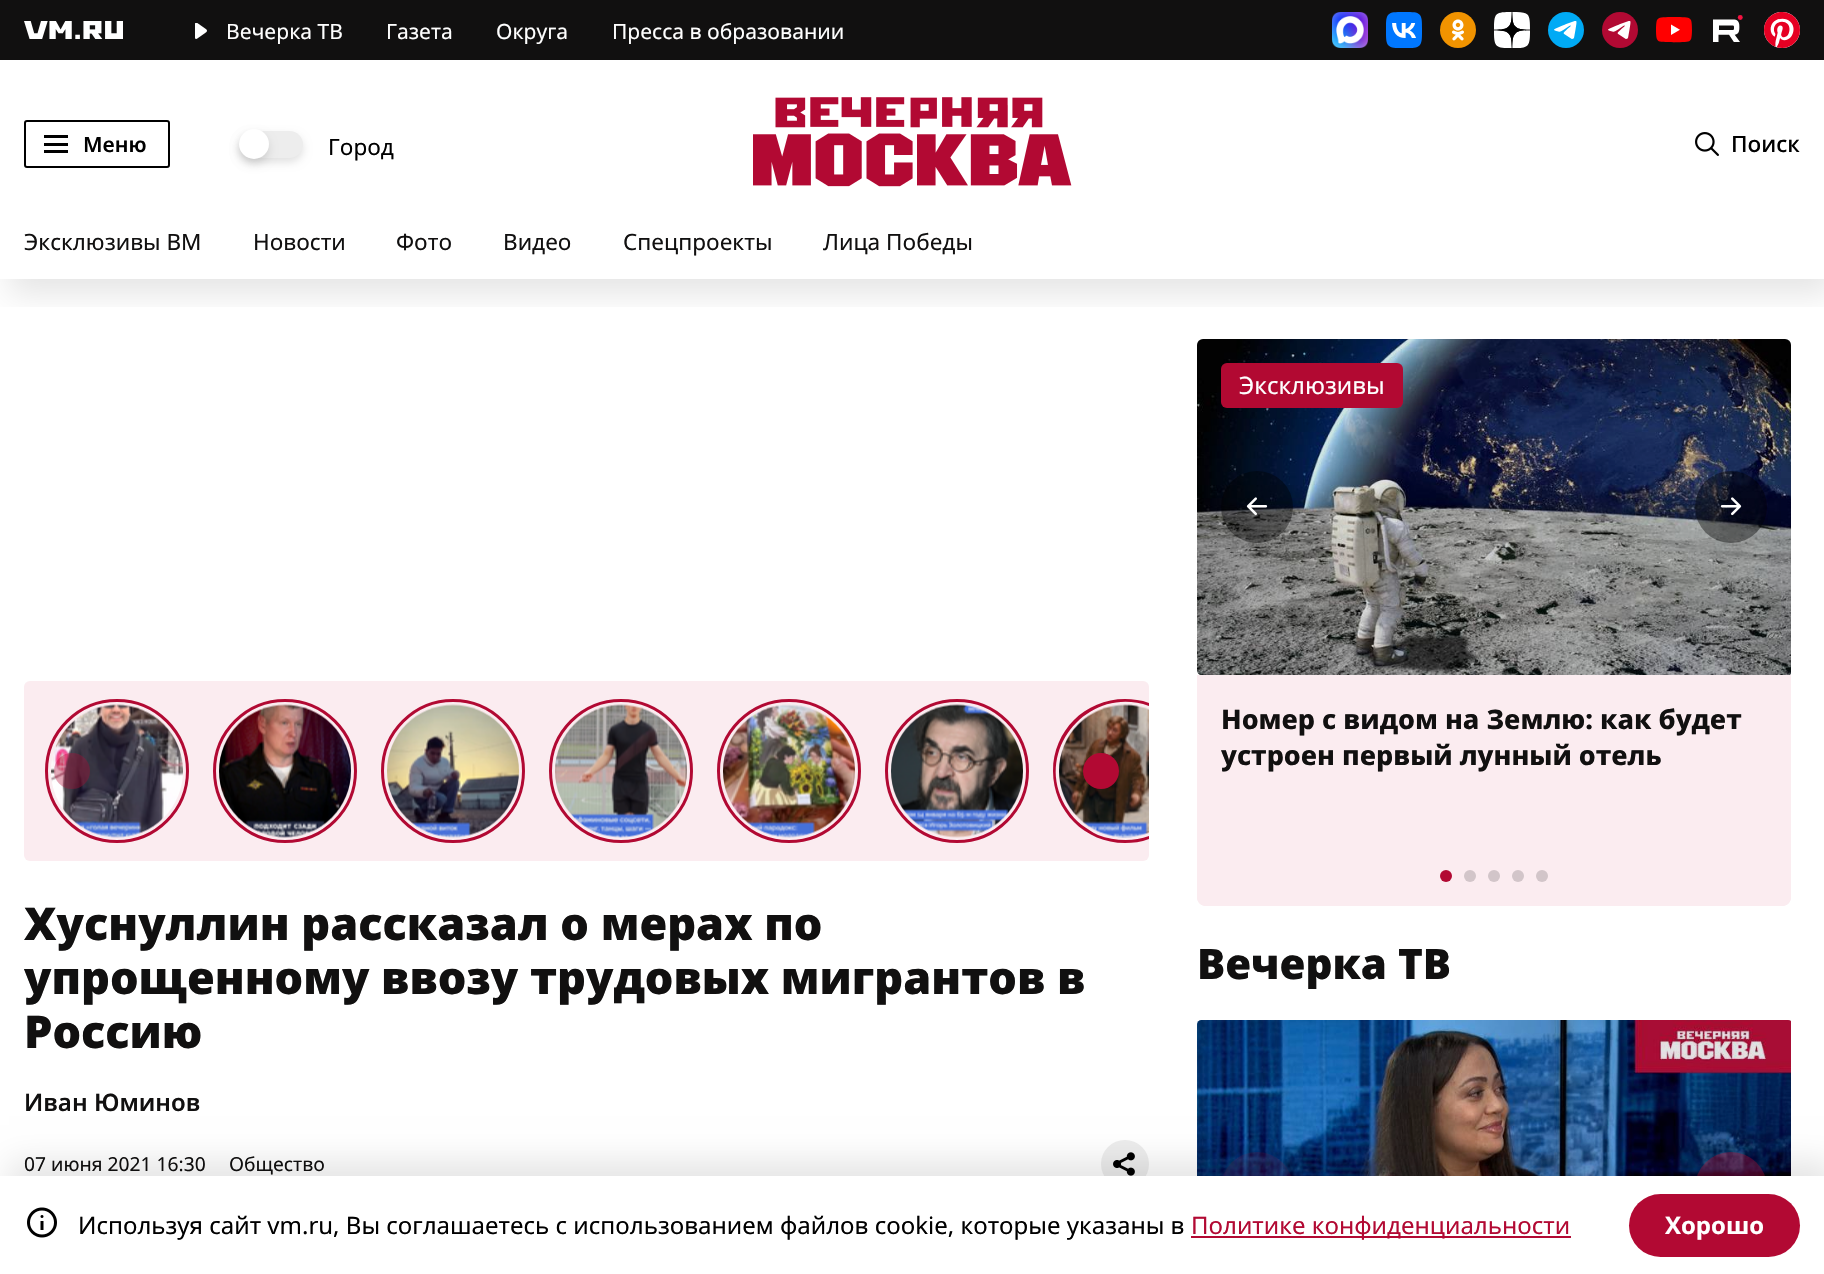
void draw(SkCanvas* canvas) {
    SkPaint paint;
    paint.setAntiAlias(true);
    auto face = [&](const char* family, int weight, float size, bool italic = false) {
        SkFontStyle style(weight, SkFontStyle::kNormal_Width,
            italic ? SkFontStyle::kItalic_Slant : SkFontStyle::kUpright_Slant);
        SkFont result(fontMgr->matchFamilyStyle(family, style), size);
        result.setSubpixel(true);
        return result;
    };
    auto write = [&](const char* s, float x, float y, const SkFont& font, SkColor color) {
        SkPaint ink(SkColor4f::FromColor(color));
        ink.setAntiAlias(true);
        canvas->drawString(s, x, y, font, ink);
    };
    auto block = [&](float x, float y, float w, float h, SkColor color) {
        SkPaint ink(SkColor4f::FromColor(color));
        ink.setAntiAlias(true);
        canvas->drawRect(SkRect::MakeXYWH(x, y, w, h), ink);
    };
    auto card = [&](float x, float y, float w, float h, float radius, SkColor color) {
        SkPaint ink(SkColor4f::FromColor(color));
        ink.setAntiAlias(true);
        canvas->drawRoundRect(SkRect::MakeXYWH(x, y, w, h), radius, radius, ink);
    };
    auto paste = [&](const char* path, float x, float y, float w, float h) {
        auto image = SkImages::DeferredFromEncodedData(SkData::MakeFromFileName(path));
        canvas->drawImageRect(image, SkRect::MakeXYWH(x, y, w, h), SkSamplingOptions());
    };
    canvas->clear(SK_ColorWHITE);
    block(0, 0, 1824, 60, SkColorSetRGB(17, 16, 16));
    paste("pic1.png", 24, 21, 99, 18);
    paste("pic2.png", 195, 23, 12, 16);
    auto kFont1 = face("Noto Sans", 400, 21);
    write("Вечерка ТВ", 226, 39, kFont1, SK_ColorWHITE);
    write("Газета", 386, 39, kFont1, SK_ColorWHITE);
    write("Округа", 496, 39, kFont1, SK_ColorWHITE);
    write("Пресса в образовании", 612, 39, kFont1, SK_ColorWHITE);
    paste("pic3.png", 1332, 12, 36, 36);
    paste("pic4.png", 1386, 12, 36, 36);
    paste("pic5.png", 1440, 12, 36, 36);
    paste("pic6.png", 1494, 12, 36, 36);
    paste("pic7.png", 1548, 12, 36, 36);
    paste("pic8.png", 1602, 12, 36, 36);
    paste("pic9.png", 1656, 17, 36, 26);
    paste("pic10.png", 1713, 15, 30, 27);
    paste("pic11.png", 1764, 12, 36, 36);
    paste("pic14.png", 1197, 339, 594, 336);
    paint.setColor(SkColorSetARGB(26, 0, 0, 0));
    canvas->drawPath(SkPathBuilder().moveTo(1203, 339).lineTo(1785, 339).cubicTo(1788.5f, 339, 1791, 341.5f, 1791, 345).lineTo(1791, 675).lineTo(1202, 675).cubicTo(1199, 675, 1197, 673, 1197, 670).lineTo(1197, 345).cubicTo(1197, 341.5f, 1199.5f, 339, 1203, 339).close().detach(), paint);
    canvas->save();
    canvas->clipRect(SkRect::MakeXYWH(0, 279, 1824, 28));
    paint.setMaskFilter(SkMaskFilter::MakeBlur(kNormal_SkBlurStyle, 15));
    canvas->drawRect(SkRect::MakeXYWH(9, 75, 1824, 219), paint);
    paint.setMaskFilter(nullptr);
    canvas->restore();
    paint.setStyle(SkPaint::kStroke_Style);
    paint.setStrokeWidth(2);
    paint.setColor(SK_ColorBLACK);
    canvas->drawRoundRect(SkRect::MakeXYWH(25, 121, 144, 46), 2, 2, paint);
    block(44, 143, 24, 3, SK_ColorBLACK);
    block(44, 135, 24, 3, SK_ColorBLACK);
    block(44, 150, 24, 3, SK_ColorBLACK);
    auto kFont2 = face("Noto Sans", 600, 21);
    write("Меню", 83, 152, kFont2, SK_ColorBLACK);
    paint.setStyle(SkPaint::kFill_Style);
    paint.setColor(SkColorSetARGB(31, 0, 0, 0));
    paint.setMaskFilter(SkMaskFilter::MakeBlur(kNormal_SkBlurStyle, 4.5f));
    canvas->drawRoundRect(SkRect::MakeXYWH(239, 135, 64, 27), 13.5f, 13.5f, paint);
    paint.setMaskFilter(nullptr);
    card(239, 131, 64, 27, 13.5f, SkColorSetRGB(237, 237, 237));
    paint.setMaskFilter(SkMaskFilter::MakeBlur(kNormal_SkBlurStyle, 4.5f));
    canvas->drawRoundRect(SkRect::MakeXYWH(239, 134, 30, 30), 15, 15, paint);
    paint.setMaskFilter(nullptr);
    paint.setColor(SK_ColorWHITE);
    canvas->drawCircle(254, 144, 15, paint);
    auto kFont3 = face("Noto Sans", 400, 22.5f);
    write("Город", 328, 155, kFont3, SK_ColorBLACK);
    paste("pic12.png", 753, 97, 319, 90);
    paste("pic13.png", 1695, 132, 24, 24);
    auto kFont4 = face("Noto Sans", 500, 22.5f);
    write("Поиск", 1731, 152, kFont4, SK_ColorBLACK);
    write("Эксклюзивы ВМ", 24, 250, kFont3, SkColorSetRGB(17, 16, 16));
    write("Новости", 253, 250, kFont3, SkColorSetRGB(17, 16, 16));
    write("Фото", 396, 250, kFont3, SkColorSetRGB(17, 16, 16));
    write("Видео", 503, 250, kFont3, SkColorSetRGB(17, 16, 16));
    write("Спецпроекты", 623, 250, kFont3, SkColorSetRGB(17, 16, 16));
    write("Лица Победы", 823, 250, kFont3, SkColorSetRGB(17, 16, 16));
    paint.setColor(SkColorSetARGB(102, 0, 0, 0));
    canvas->drawCircle(1257, 507, 36, paint);
    paste("pic15.png", 1246, 497, 22, 19);
    canvas->drawCircle(1731, 507, 36, paint);
    paste("pic16.png", 1720, 497, 22, 19);
    card(1221, 363, 182, 45, 6, SkColorSetRGB(178, 9, 50));
    auto kFont5 = face("Noto Sans", 400, 24);
    write("Эксклюзивы", 1239, 394, kFont5, SK_ColorWHITE);
    paint.setColor(SkColorSetRGB(251, 236, 240));
    canvas->drawPath(SkPathBuilder().moveTo(1197, 675).lineTo(1791, 675).lineTo(1791, 897).cubicTo(1791, 902, 1787, 906, 1782, 906).lineTo(1206, 906).cubicTo(1201, 906, 1197, 902, 1197, 897).close().detach(), paint);
    auto kFont6 = face("Noto Sans", 800, 27);
    write("Номер с видом на Землю: как будет", 1221, 729, kFont6, SkColorSetRGB(17, 16, 16));
    write("устроен первый лунный отель", 1221, 765, kFont6, SkColorSetRGB(17, 16, 16));
    canvas->drawPath(SkPathBuilder().moveTo(1197, 870).lineTo(1791, 870).lineTo(1791, 897).cubicTo(1791, 902, 1787, 906, 1782, 906).lineTo(1206, 906).cubicTo(1201, 906, 1197, 902, 1197, 897).close().detach(), paint);
    paint.setColor(SkColorSetRGB(178, 9, 51));
    canvas->drawCircle(1446, 876, 6, paint);
    paint.setColor(SkColorSetRGB(210, 197, 201));
    canvas->drawCircle(1470, 876, 6, paint);
    canvas->drawCircle(1494, 876, 6, paint);
    canvas->drawCircle(1518, 876, 6, paint);
    canvas->drawCircle(1542, 876, 6, paint);
    auto kFont7 = face("Noto Sans", 900, 42);
    write("Вечерка ТВ", 1197, 979, kFont7, SkColorSetRGB(17, 16, 16));
    paste("pic17.png", 1197, 1020, 594, 156);
    paint.setColor(SkColorSetARGB(26, 0, 0, 0));
    canvas->drawPath(SkPathBuilder().moveTo(1202, 1020).lineTo(1791, 1020).lineTo(1791, 1274).cubicTo(1791, 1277.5f, 1788.5f, 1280, 1785, 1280).lineTo(1203, 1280).cubicTo(1199.5f, 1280, 1197, 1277.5f, 1197, 1274).lineTo(1197, 1025).cubicTo(1197, 1022, 1199, 1020, 1202, 1020).close().detach(), paint);
    paint.setColor(SkColorSetARGB(36, 178, 9, 51));
    canvas->drawCircle(1257, 1188, 36, paint);
    paint.setColor(SkColorSetARGB(102, 178, 9, 51));
    canvas->drawCircle(1731, 1188, 36, paint);
    card(24, 681, 1125, 180, 6, SkColorSetRGB(251, 236, 240));
    paste("pic18.png", 51, 704, 132, 134);
    paint.setStyle(SkPaint::kStroke_Style);
    paint.setStrokeWidth(3);
    paint.setColor(SkColorSetRGB(178, 9, 51));
    canvas->drawCircle(117, 771, 70.5f, paint);
    paste("pic19.png", 219, 704, 132, 134);
    canvas->drawCircle(285, 771, 70.5f, paint);
    paste("pic20.png", 387, 704, 132, 134);
    canvas->drawCircle(453, 771, 70.5f, paint);
    paste("pic21.png", 555, 704, 132, 134);
    canvas->drawCircle(621, 771, 70.5f, paint);
    paste("pic22.png", 723, 704, 132, 134);
    canvas->drawCircle(789, 771, 70.5f, paint);
    paste("pic23.png", 891, 704, 132, 134);
    canvas->drawCircle(957, 771, 70.5f, paint);
    paste("pic24.png", 1059, 704, 90, 134);
    paint.setStyle(SkPaint::kFill_Style);
    canvas->drawPath(SkPathBuilder().moveTo(1125, 699).cubicTo(1085, 699, 1053, 731, 1053, 771).cubicTo(1053, 811, 1085, 843, 1125, 843).cubicTo(1133, 843, 1141, 842, 1149, 839).lineTo(1149, 836).cubicTo(1133, 842, 1114, 841, 1098, 835).cubicTo(1086, 829, 1075, 821, 1068, 810).cubicTo(1030, 753, 1088, 684, 1149, 706).lineTo(1149, 703).cubicTo(1141, 700, 1133, 699, 1125, 699).close().detach(), paint);
    paint.setColor(SkColorSetARGB(89, 178, 9, 51));
    canvas->drawCircle(72, 771, 18, paint);
    paint.setColor(SkColorSetRGB(178, 9, 51));
    canvas->drawCircle(1101, 771, 18, paint);
    auto kFont8 = face("Noto Sans", 900, 45);
    write("Хуснуллин рассказал о мерах по", 24, 940, kFont8, SkColorSetRGB(17, 16, 16));
    write("упрощенному ввозу трудовых мигрантов в", 24, 994, kFont8, SkColorSetRGB(17, 16, 16));
    write("Россию", 24, 1048, kFont8, SkColorSetRGB(17, 16, 16));
    auto kFont9 = face("Noto Sans", 600, 24);
    write("Иван Юминов", 24, 1111, kFont9, SkColorSetRGB(17, 16, 16));
    auto kFont10 = face("Noto Sans", 400, 19.25f);
    write("07 июня 2021 16:30", 24, 1171, kFont10, SkColorSetRGB(17, 16, 16));
    write("Общество", 229, 1171, kFont10, SkColorSetRGB(17, 16, 16));
    paint.setColor(SkColorSetRGB(237, 237, 237));
    canvas->drawCircle(1125, 1164, 24, paint);
    paste("pic25.png", 1113, 1152, 22, 24);
    paint.setColor(SkColorSetARGB(26, 0, 0, 0));
    paint.setMaskFilter(SkMaskFilter::MakeBlur(kNormal_SkBlurStyle, 15));
    canvas->drawRect(SkRect::MakeXYWH(9, 1161, 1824, 99), paint);
    paint.setMaskFilter(nullptr);
    block(0, 1176, 1824, 98, SK_ColorWHITE);
    paste("pic26.png", 27, 1207, 30, 31);
    write("Используя сайт vm.ru, Вы соглашаетесь с использованием файлов cookie, которые указаны в", 78, 1234, kFont5, SK_ColorBLACK);
    block(1191, 1236, 380, 2, SkColorSetRGB(178, 9, 51));
    write("Политике конфиденциальности", 1191, 1234, kFont5, SkColorSetRGB(178, 9, 51));
    card(1629, 1194, 171, 63, 31.5f, SkColorSetRGB(178, 9, 51));
    auto kFont11 = face("Noto Sans", 700, 24);
    write("Хорошо", 1665, 1234, kFont11, SK_ColorWHITE);
}
